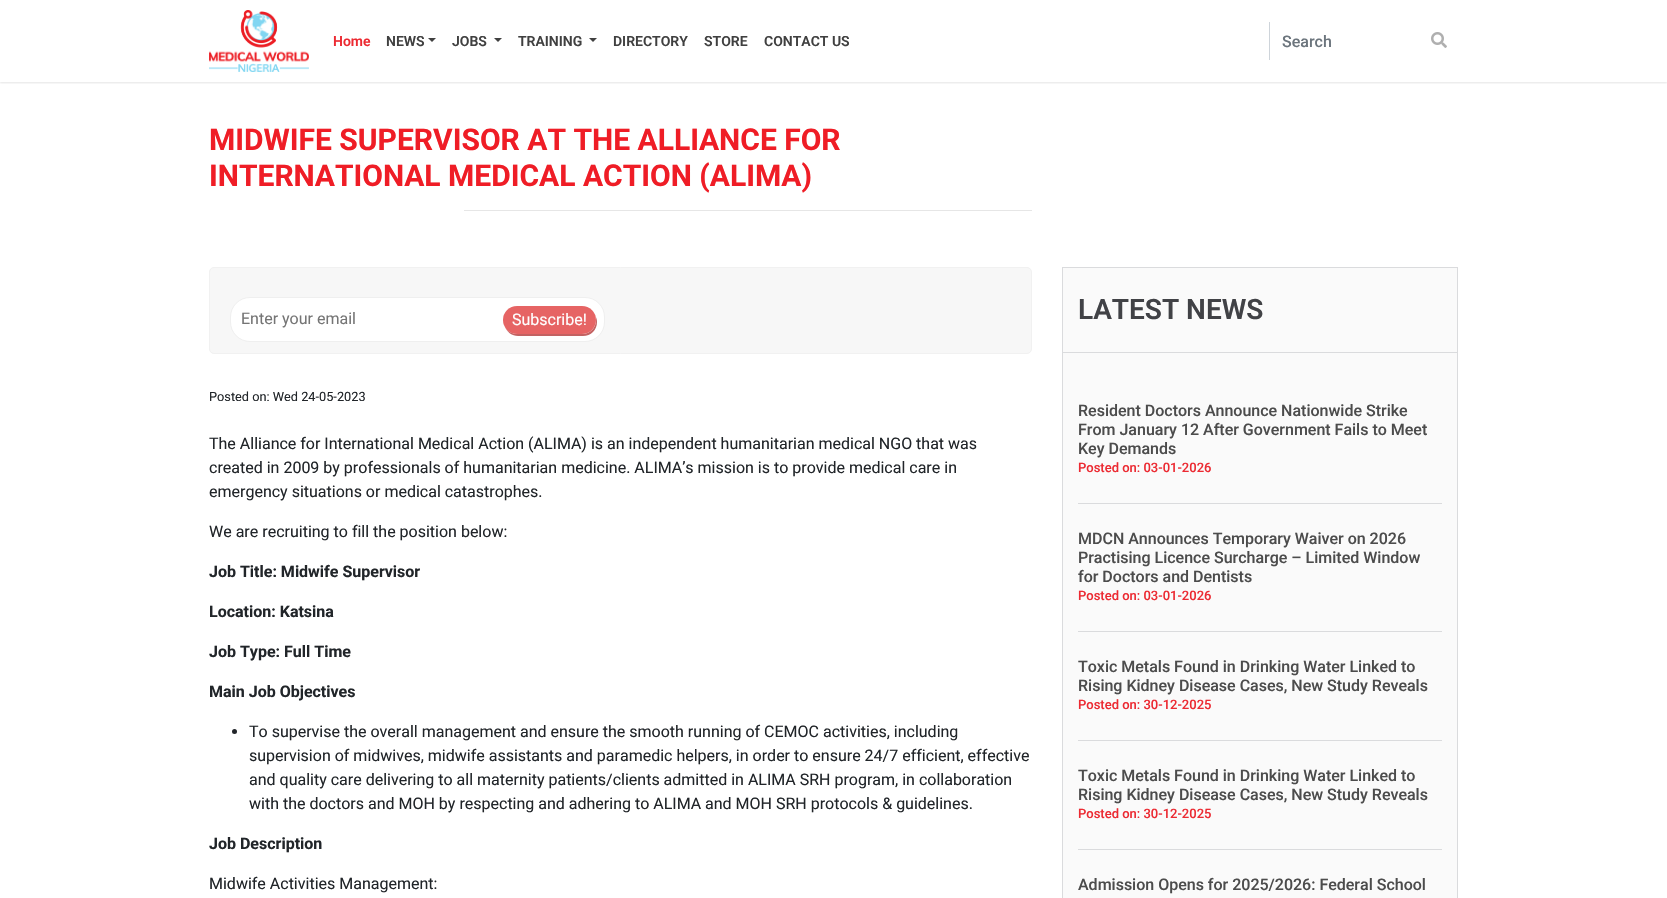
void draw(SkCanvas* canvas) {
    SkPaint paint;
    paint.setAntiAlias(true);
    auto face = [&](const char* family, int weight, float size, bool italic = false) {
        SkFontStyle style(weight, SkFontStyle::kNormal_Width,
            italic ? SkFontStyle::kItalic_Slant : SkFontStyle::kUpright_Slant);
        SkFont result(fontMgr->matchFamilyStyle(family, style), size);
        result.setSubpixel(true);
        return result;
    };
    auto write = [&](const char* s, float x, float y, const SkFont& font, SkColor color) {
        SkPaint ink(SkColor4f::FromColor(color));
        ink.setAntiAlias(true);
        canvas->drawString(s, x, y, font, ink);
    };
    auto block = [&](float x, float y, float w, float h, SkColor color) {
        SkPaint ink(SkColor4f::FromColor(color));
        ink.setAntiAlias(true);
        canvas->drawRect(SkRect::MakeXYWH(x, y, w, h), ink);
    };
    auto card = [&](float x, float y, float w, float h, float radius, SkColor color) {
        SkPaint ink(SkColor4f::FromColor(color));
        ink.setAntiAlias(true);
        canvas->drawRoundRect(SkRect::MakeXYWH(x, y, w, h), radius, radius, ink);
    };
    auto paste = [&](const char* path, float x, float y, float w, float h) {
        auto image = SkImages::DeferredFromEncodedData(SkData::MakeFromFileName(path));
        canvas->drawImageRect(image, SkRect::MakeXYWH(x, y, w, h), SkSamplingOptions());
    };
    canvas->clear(SK_ColorWHITE);
    canvas->save();
    canvas->clipRect(SkRect::MakeXYWH(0, 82, 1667, 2));
    paint.setColor(SkColorSetARGB(26, 0, 0, 0));
    paint.setMaskFilter(SkMaskFilter::MakeBlur(kNormal_SkBlurStyle, 1));
    canvas->drawRect(SkRect::MakeXYWH(0, 1, 1667, 82), paint);
    paint.setMaskFilter(nullptr);
    canvas->restore();
    paste("pic1.png", 209, 10, 100, 62);
    auto kFont1 = face("Roboto", 600, 14);
    write("Home", 333, 46, kFont1, SkColorSetRGB(236, 42, 50));
    write("NEWS", 386, 46, kFont1, SkColorSetRGB(64, 64, 64));
    paint.setColor(SkColorSetRGB(64, 64, 64));
    canvas->drawPath(SkPathBuilder().moveTo(428, 38).lineTo(436, 38).lineTo(432, 42).close().detach(), paint);
    write("JOBS", 452, 46, kFont1, SkColorSetRGB(64, 64, 64));
    canvas->drawPath(SkPathBuilder().moveTo(494, 38).lineTo(502, 38).lineTo(498, 42).close().detach(), paint);
    write("TRAINING", 518, 46, kFont1, SkColorSetRGB(64, 64, 64));
    canvas->drawPath(SkPathBuilder().moveTo(589, 38).lineTo(597, 38).lineTo(593, 42).close().detach(), paint);
    write("DIRECTORY", 613, 46, kFont1, SkColorSetRGB(64, 64, 64));
    write("STORE", 704, 46, kFont1, SkColorSetRGB(64, 64, 64));
    write("CONTACT US", 764, 46, kFont1, SkColorSetRGB(64, 64, 64));
    block(1269, 22, 1, 38, SkColorSetRGB(206, 212, 218));
    auto kFont2 = face("Roboto", 500, 16);
    write("Search", 1282, 47, kFont2, SkColorSetRGB(108, 117, 125));
    paste("pic2.png", 1431, 32, 16, 16);
    auto kFont3 = face("Roboto", 700, 30);
    write("MIDWIFE SUPERVISOR AT THE ALLIANCE FOR", 209, 150, kFont3, SkColorSetRGB(239, 29, 38));
    write("INTERNATIONAL MEDICAL ACTION (ALIMA)", 209, 186, kFont3, SkColorSetRGB(239, 29, 38));
    block(464, 210, 568, 1, SkColorSetRGB(230, 230, 230));
    paint.setColor(SkColorSetRGB(247, 247, 247));
    canvas->drawRoundRect(SkRect::MakeXYWH(209.5f, 267.5f, 822, 86), 4.5f, 4.5f, paint);
    paint.setStyle(SkPaint::kStroke_Style);
    paint.setStrokeWidth(1);
    paint.setColor(SkColorSetRGB(241, 241, 241));
    canvas->drawRoundRect(SkRect::MakeXYWH(209.5f, 267.5f, 822, 86), 4.5f, 4.5f, paint);
    paint.setStyle(SkPaint::kFill_Style);
    paint.setColor(SK_ColorWHITE);
    canvas->drawRoundRect(SkRect::MakeXYWH(230.5f, 297.5f, 374, 44), 19.5f, 19.5f, paint);
    paint.setStyle(SkPaint::kStroke_Style);
    paint.setColor(SkColorSetRGB(239, 239, 239));
    canvas->drawRoundRect(SkRect::MakeXYWH(230.5f, 297.5f, 374, 44), 19.5f, 19.5f, paint);
    auto kFont4 = face("Roboto", 400, 16);
    write("Enter your email", 241, 324, kFont4, SkColorSetRGB(117, 117, 117));
    paint.setStyle(SkPaint::kFill_Style);
    paint.setColor(SkColorSetRGB(195, 98, 98));
    canvas->drawPath(SkPathBuilder().moveTo(505, 327).cubicTo(507, 332, 512, 336, 518, 336).lineTo(583, 336).cubicTo(591, 336, 597, 330, 597, 322).cubicTo(597, 319, 596, 317, 595, 315).cubicTo(596, 316, 596, 318, 596, 320).cubicTo(596, 328, 590, 334, 582, 334).lineTo(517, 334).cubicTo(512, 334, 507, 331, 505, 327).close().detach(), paint);
    card(503, 306, 93, 28, 14, SkColorSetRGB(230, 100, 100));
    write("Subscribe!", 512, 325, kFont4, SK_ColorWHITE);
    auto kFont5 = face("Roboto", 400, 12.75f);
    write("Posted on: Wed 24-05-2023", 209, 401, kFont5, SkColorSetRGB(33, 37, 41));
    write("The Alliance for International Medical Action (ALIMA) is an independent humanitarian medical NGO that was", 209, 449, kFont4, SkColorSetRGB(33, 37, 41));
    write("created in 2009 by professionals of humanitarian medicine. ALIMA’s mission is to provide medical care in", 209, 473, kFont4, SkColorSetRGB(33, 37, 41));
    write("emergency situations or medical catastrophes.", 209, 497, kFont4, SkColorSetRGB(33, 37, 41));
    write("We are recruiting to fill the position below:", 209, 537, kFont4, SkColorSetRGB(33, 37, 41));
    auto kFont6 = face("Roboto", 700, 16);
    write("Job Title: Midwife Supervisor", 209, 577, kFont6, SkColorSetRGB(33, 37, 41));
    write("Location: Katsina", 209, 617, kFont6, SkColorSetRGB(33, 37, 41));
    write("Job Type: Full Time", 209, 657, kFont6, SkColorSetRGB(33, 37, 41));
    write("Main Job Objectives", 209, 697, kFont6, SkColorSetRGB(33, 37, 41));
    paint.setColor(SkColorSetRGB(33, 37, 41));
    canvas->drawCircle(234.5f, 731.5f, 2.5f, paint);
    write("To supervise the overall management and ensure the smooth running of CEMOC activities, including", 249, 737, kFont4, SkColorSetRGB(33, 37, 41));
    write("supervision of midwives, midwife assistants and paramedic helpers, in order to ensure 24/7 efficient, effective", 249, 761, kFont4, SkColorSetRGB(33, 37, 41));
    write("and quality care delivering to all maternity patients/clients admitted in ALIMA SRH program, in collaboration", 249, 785, kFont4, SkColorSetRGB(33, 37, 41));
    write("with the doctors and MOH by respecting and adhering to ALIMA and MOH SRH protocols & guidelines.", 249, 809, kFont4, SkColorSetRGB(33, 37, 41));
    write("Job Description", 209, 849, kFont6, SkColorSetRGB(33, 37, 41));
    write("Midwife Activities Management:", 209, 889, kFont4, SkColorSetRGB(33, 37, 41));
    paint.setColor(SkColorSetRGB(250, 250, 250));
    canvas->drawRect(SkRect::MakeXYWH(1062.5f, 267.5f, 395, 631), paint);
    paint.setStyle(SkPaint::kStroke_Style);
    paint.setColor(SkColorSetRGB(218, 219, 221));
    canvas->drawRect(SkRect::MakeXYWH(1062.5f, 267.5f, 395, 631), paint);
    block(1063, 352, 394, 1, SkColorSetRGB(218, 219, 221));
    auto kFont7 = face("Roboto", 600, 28);
    write("LATEST NEWS", 1078, 319, kFont7, SkColorSetRGB(65, 66, 70));
    block(1078, 503, 364, 1, SkColorSetRGB(218, 219, 221));
    write("Resident Doctors Announce Nationwide Strike", 1078, 416, kFont2, SkColorSetRGB(76, 76, 76));
    write("From January 12 After Government Fails to Meet", 1078, 435, kFont2, SkColorSetRGB(76, 76, 76));
    write("Key Demands", 1078, 454, kFont2, SkColorSetRGB(76, 76, 76));
    auto kFont8 = face("Roboto", 500, 13);
    write("Posted on: 03-01-2026", 1078, 472, kFont8, SkColorSetRGB(236, 42, 50));
    block(1078, 631, 364, 1, SkColorSetRGB(218, 219, 221));
    write("MDCN Announces Temporary Waiver on 2026", 1078, 544, kFont2, SkColorSetRGB(76, 76, 76));
    write("Practising Licence Surcharge – Limited Window", 1078, 563, kFont2, SkColorSetRGB(76, 76, 76));
    write("for Doctors and Dentists", 1078, 582, kFont2, SkColorSetRGB(76, 76, 76));
    write("Posted on: 03-01-2026", 1078, 600, kFont8, SkColorSetRGB(236, 42, 50));
    block(1078, 740, 364, 1, SkColorSetRGB(218, 219, 221));
    write("Toxic Metals Found in Drinking Water Linked to", 1078, 672, kFont2, SkColorSetRGB(76, 76, 76));
    write("Rising Kidney Disease Cases, New Study Reveals", 1078, 691, kFont2, SkColorSetRGB(76, 76, 76));
    write("Posted on: 30-12-2025", 1078, 709, kFont8, SkColorSetRGB(236, 42, 50));
    block(1078, 849, 364, 1, SkColorSetRGB(218, 219, 221));
    write("Toxic Metals Found in Drinking Water Linked to", 1078, 781, kFont2, SkColorSetRGB(76, 76, 76));
    write("Rising Kidney Disease Cases, New Study Reveals", 1078, 800, kFont2, SkColorSetRGB(76, 76, 76));
    write("Posted on: 30-12-2025", 1078, 818, kFont8, SkColorSetRGB(236, 42, 50));
    write("Admission Opens for 2025/2026: Federal School", 1078, 890, kFont2, SkColorSetRGB(76, 76, 76));
}
